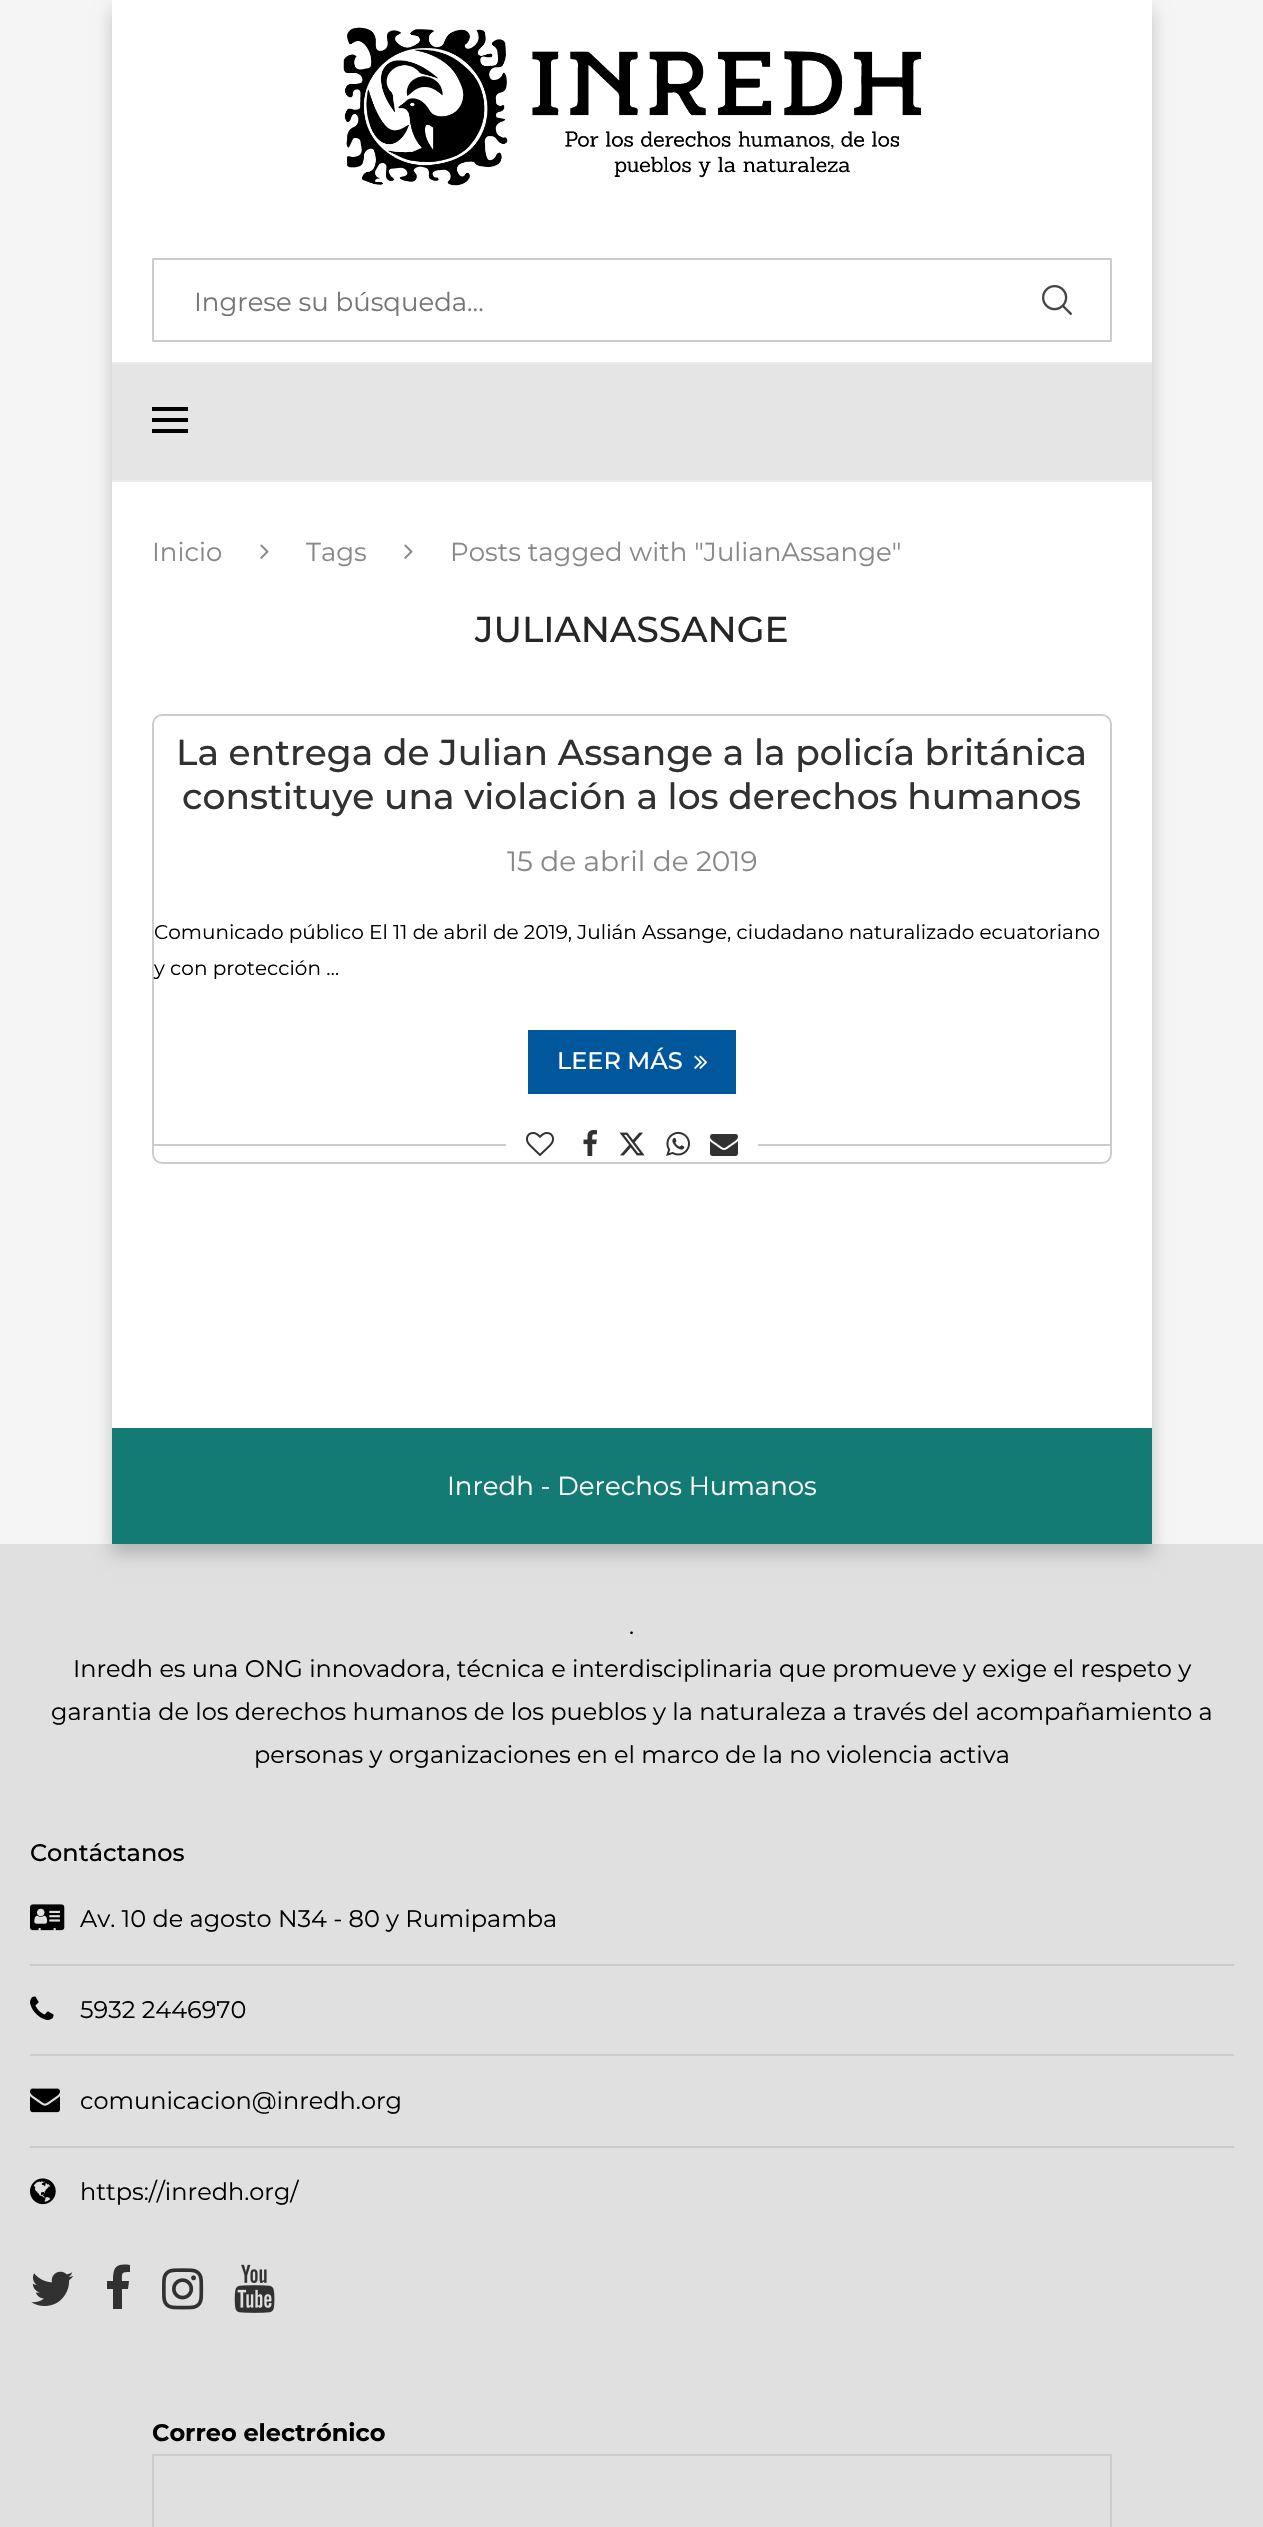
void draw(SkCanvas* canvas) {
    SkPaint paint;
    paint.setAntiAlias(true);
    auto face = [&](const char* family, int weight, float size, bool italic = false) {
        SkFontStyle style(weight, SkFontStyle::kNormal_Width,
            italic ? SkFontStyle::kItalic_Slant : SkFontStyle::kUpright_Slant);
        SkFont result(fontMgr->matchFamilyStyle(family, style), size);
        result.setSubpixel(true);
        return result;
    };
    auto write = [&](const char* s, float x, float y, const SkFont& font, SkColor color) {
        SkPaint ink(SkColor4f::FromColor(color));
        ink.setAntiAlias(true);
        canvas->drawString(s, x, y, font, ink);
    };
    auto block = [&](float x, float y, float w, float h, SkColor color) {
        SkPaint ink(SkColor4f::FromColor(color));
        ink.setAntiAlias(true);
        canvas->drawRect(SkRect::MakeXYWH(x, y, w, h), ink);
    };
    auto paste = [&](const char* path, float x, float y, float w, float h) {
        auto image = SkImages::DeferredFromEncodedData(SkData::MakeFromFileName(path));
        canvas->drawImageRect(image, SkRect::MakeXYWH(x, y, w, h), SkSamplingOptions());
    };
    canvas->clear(SkColorSetRGB(245, 245, 245));
    block(0, 1544, 1263, 983, SkColorSetRGB(224, 224, 224));
    paint.setColor(SkColorSetARGB(51, 0, 0, 0));
    paint.setMaskFilter(SkMaskFilter::MakeBlur(kNormal_SkBlurStyle, 8));
    canvas->drawRect(SkRect::MakeXYWH(112, 10, 1040, 1544), paint);
    paint.setMaskFilter(nullptr);
    block(112, 0, 1040, 1428, SK_ColorWHITE);
    paste("pic1.png", 343, 27, 578, 159);
    paint.setStyle(SkPaint::kStroke_Style);
    paint.setStrokeWidth(2);
    paint.setColor(SkColorSetRGB(204, 204, 204));
    canvas->drawRect(SkRect::MakeXYWH(153, 259, 958, 82), paint);
    canvas->save();
    canvas->clipRect(SkRect::MakeXYWH(194, 284, 836, 32));
    auto kFont1 = face("Montserrat", 400, 26);
    write("Ingrese su búsqueda...", 194, 311, kFont1, SkColorSetRGB(117, 117, 117));
    canvas->restore();
    paste("pic2.png", 1042, 285, 30, 30);
    block(112, 364, 1040, 116, SkColorSetRGB(229, 229, 229));
    block(112, 362, 1040, 2, SkColorSetRGB(236, 236, 236));
    block(112, 480, 1040, 2, SkColorSetRGB(236, 236, 236));
    block(152, 407, 36, 4, SK_ColorBLACK);
    block(152, 418, 36, 4, SK_ColorBLACK);
    block(152, 429, 36, 4, SK_ColorBLACK);
    write("Inicio", 152, 561, kFont1, SkColorSetRGB(136, 136, 136));
    paste("pic3.png", 260, 544, 9, 15);
    write("Tags", 306, 561, kFont1, SkColorSetRGB(136, 136, 136));
    paste("pic3.png", 404, 544, 9, 15);
    write("Posts tagged with \"JulianAssange\"", 450, 561, kFont1, SkColorSetRGB(136, 136, 136));
    auto kFont2 = face("Montserrat", 500, 36);
    write("JULIANASSANGE", 475, 642, kFont2, SkColorSetRGB(38, 38, 38));
    canvas->drawRoundRect(SkRect::MakeXYWH(153, 715, 958, 448), 9, 9, paint);
    write("La entrega de Julian Assange a la policía británica", 176, 765, kFont2, SkColorSetRGB(49, 49, 49));
    write("constituye una violación a los derechos humanos", 182, 809, kFont2, SkColorSetRGB(49, 49, 49));
    auto kFont3 = face("Montserrat", 400, 28);
    write("15 de abril de 2019", 507, 871, kFont3, SkColorSetRGB(136, 136, 136));
    auto kFont4 = face("Montserrat", 400, 20);
    write("Comunicado público El 11 de abril de 2019, Julián Assange, ciudadano naturalizado ecuatoriano", 154, 939, kFont4, SK_ColorBLACK);
    write("y con protección …", 154, 975, kFont4, SK_ColorBLACK);
    block(528, 1030, 208, 64, SkColorSetRGB(1, 87, 155));
    auto kFont5 = face("Montserrat", 500, 24);
    write("LEER MÁS", 557, 1069, kFont5, SK_ColorWHITE);
    paste("pic4.png", 694, 1055, 14, 14);
    block(154, 1144, 956, 2, SkColorSetRGB(204, 204, 204));
    block(506, 1144, 252, 2, SK_ColorWHITE);
    paste("pic5.png", 526, 1132, 28, 24);
    paste("pic6.png", 583, 1130, 14, 26);
    paste("pic7.png", 619, 1132, 26, 24);
    paste("pic8.png", 666, 1131, 24, 25);
    paste("pic9.png", 710, 1134, 28, 22);
    block(112, 1428, 1040, 116, SkColorSetRGB(19, 123, 116));
    write("Inredh - Derechos Humanos", 447, 1495, kFont1, SK_ColorWHITE);
    auto kFont6 = face("Montserrat", 400, 24);
    write(".", 629, 1634, kFont6, SK_ColorBLACK);
    write("Inredh es una ONG innovadora, técnica e interdisciplinaria que promueve y exige el respeto y", 73, 1677, kFont6, SK_ColorBLACK);
    write("garantia de los derechos humanos de los pueblos y la naturaleza a través del acompañamiento a", 51, 1720, kFont6, SK_ColorBLACK);
    write("personas y organizaciones en el marco de la no violencia activa", 254, 1763, kFont6, SK_ColorBLACK);
    write("Contáctanos", 30, 1861, kFont5, SK_ColorBLACK);
    block(30, 1964, 1204, 2, SkColorSetRGB(204, 204, 204));
    paste("pic10.png", 30, 1904, 35, 27);
    write("Av. 10 de agosto N34 - 80 y Rumipamba", 80, 1927, kFont6, SK_ColorBLACK);
    block(30, 2054, 1204, 2, SkColorSetRGB(204, 204, 204));
    paste("pic11.png", 30, 1996, 24, 24);
    write("5932 2446970", 80, 2018, kFont6, SK_ColorBLACK);
    block(30, 2146, 1204, 2, SkColorSetRGB(204, 204, 204));
    paste("pic12.png", 30, 2088, 30, 25);
    write("comunicacion@inredh.org", 80, 2109, kFont6, SK_ColorBLACK);
    paste("pic13.png", 30, 2178, 26, 27);
    write("https://inredh.org/", 80, 2200, kFont6, SK_ColorBLACK);
    paste("pic14.png", 31, 2271, 43, 35);
    paint.setStyle(SkPaint::kFill_Style);
    paint.setColor(SkColorSetRGB(49, 49, 49));
    canvas->drawPath(SkPathBuilder().moveTo(130, 2265).lineTo(130, 2272).cubicTo(121, 2272, 122, 2273, 122, 2281).lineTo(129, 2281).lineTo(128, 2289).lineTo(122, 2289).lineTo(122, 2309).lineTo(113, 2309).lineTo(113, 2289).lineTo(107, 2289).lineTo(107, 2281).lineTo(113, 2281).cubicTo(113, 2268, 115, 2263, 130, 2265).close().detach(), paint);
    paste("pic15.png", 162, 2268, 42, 42);
    paste("pic16.png", 234, 2264, 41, 49);
    auto kFont7 = face("Montserrat", 700, 24);
    write("Correo electrónico", 152, 2441, kFont7, SK_ColorBLACK);
    paint.setStyle(SkPaint::kStroke_Style);
    paint.setColor(SkColorSetRGB(204, 204, 204));
    canvas->drawRect(SkRect::MakeXYWH(153, 2455, 958, 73), paint);
}
